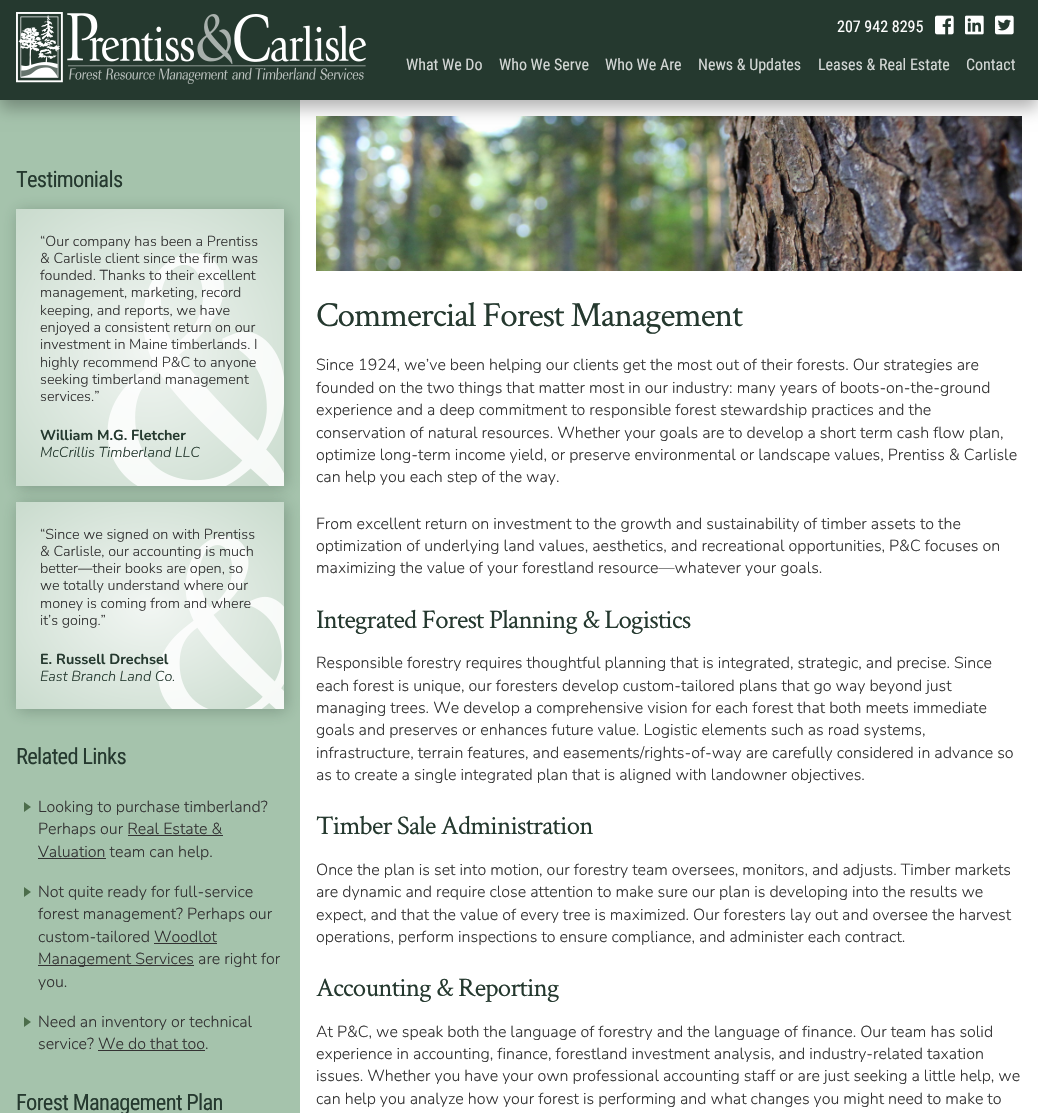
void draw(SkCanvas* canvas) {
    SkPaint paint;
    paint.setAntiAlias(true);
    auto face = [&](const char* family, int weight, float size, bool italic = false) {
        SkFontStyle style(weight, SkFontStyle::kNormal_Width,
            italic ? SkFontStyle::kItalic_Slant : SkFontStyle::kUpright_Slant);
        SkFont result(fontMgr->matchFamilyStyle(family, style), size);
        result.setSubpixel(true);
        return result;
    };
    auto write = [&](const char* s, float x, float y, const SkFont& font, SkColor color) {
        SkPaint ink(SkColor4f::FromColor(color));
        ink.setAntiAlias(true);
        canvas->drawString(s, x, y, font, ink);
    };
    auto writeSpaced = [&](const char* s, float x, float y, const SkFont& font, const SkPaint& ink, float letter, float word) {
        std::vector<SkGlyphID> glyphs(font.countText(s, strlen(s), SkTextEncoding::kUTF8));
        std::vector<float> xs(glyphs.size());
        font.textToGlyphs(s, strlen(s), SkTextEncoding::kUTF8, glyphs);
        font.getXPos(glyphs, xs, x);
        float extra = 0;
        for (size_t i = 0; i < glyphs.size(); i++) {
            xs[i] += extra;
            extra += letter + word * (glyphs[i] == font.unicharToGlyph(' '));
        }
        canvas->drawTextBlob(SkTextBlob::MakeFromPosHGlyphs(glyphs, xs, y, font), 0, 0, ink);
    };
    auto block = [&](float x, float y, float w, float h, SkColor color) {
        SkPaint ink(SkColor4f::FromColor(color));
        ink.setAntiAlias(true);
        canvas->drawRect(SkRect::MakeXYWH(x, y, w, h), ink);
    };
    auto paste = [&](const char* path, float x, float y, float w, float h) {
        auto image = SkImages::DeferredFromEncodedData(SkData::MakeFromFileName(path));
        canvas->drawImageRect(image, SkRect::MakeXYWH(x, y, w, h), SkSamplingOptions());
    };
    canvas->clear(SK_ColorWHITE);
    block(0, 100, 300, 1013, SkColorSetRGB(165, 195, 172));
    paste("pic7.png", 316, 116, 706, 155);
    paint.setColor(SkColorSetARGB(77, 0, 0, 0));
    paint.setMaskFilter(SkMaskFilter::MakeBlur(kNormal_SkBlurStyle, 8));
    canvas->drawRect(SkRect::MakeXYWH(0, 8, 1038, 100), paint);
    paint.setMaskFilter(nullptr);
    block(0, 0, 1038, 100, SkColorSetRGB(37, 57, 47));
    paste("pic1.png", 16, 12, 350, 72);
    auto kFont1 = face("Roboto Condensed", 400, 16);
    write("207 942 8295", 837, 32, kFont1, SK_ColorWHITE);
    paste("pic2.png", 935, 15, 19, 20);
    paste("pic3.png", 965, 15, 19, 20);
    paste("pic4.png", 995, 15, 19, 20);
    write("What We Do", 406, 70, kFont1, SkColorSetRGB(211, 215, 213));
    write("Who We Serve", 499, 70, kFont1, SkColorSetRGB(211, 215, 213));
    write("Who We Are", 605, 70, kFont1, SkColorSetRGB(211, 215, 213));
    write("News & Updates", 698, 70, kFont1, SkColorSetRGB(211, 215, 213));
    write("Leases & Real Estate", 818, 70, kFont1, SkColorSetRGB(211, 215, 213));
    write("Contact", 966, 70, kFont1, SkColorSetRGB(211, 215, 213));
    paint.setColor(SkColorSetARGB(77, 37, 57, 47));
    paint.setMaskFilter(SkMaskFilter::MakeBlur(kNormal_SkBlurStyle, 7.5f));
    canvas->drawRect(SkRect::MakeXYWH(18, 211, 268, 277), paint);
    paint.setMaskFilter(nullptr);
    auto kFont2 = face("Roboto Condensed", 400, 22.5f);
    paint.setColor(SkColorSetRGB(37, 57, 47));
    writeSpaced("Testimonials", 16, 187, kFont2, paint, -0.7f, 0);
    {
        const SkColor colors[] = {SkColorSetRGB(242, 246, 243), SkColorSetRGB(201, 219, 205)};
        const float stops[] = {0, 1};
        SkMatrix m = SkMatrix::Translate(150, 348).preScale(190, 196);
        paint.setShader(SkGradientShader::MakeRadial({0, 0}, 1, colors, stops, 2, SkTileMode::kClamp, 0, &m));
        paint.setAlpha(255);
    }
    canvas->drawRect(SkRect::MakeXYWH(16, 209, 268, 277), paint);
    paste("pic5.png", 107, 253, 177, 233);
    auto kFont3 = face("Nunito", 300, 14.4f);
    write("“Our company has been a Prentiss", 40, 246, kFont3, SkColorSetRGB(51, 51, 51));
    write("& Carlisle client since the firm was", 40, 263, kFont3, SkColorSetRGB(51, 51, 51));
    write("founded. Thanks to their excellent", 40, 280, kFont3, SkColorSetRGB(51, 51, 51));
    write("management, marketing, record", 40, 297, kFont3, SkColorSetRGB(51, 51, 51));
    write("keeping, and reports, we have", 40, 315, kFont3, SkColorSetRGB(51, 51, 51));
    write("enjoyed a consistent return on our", 40, 332, kFont3, SkColorSetRGB(51, 51, 51));
    write("investment in Maine timberlands. I", 40, 349, kFont3, SkColorSetRGB(51, 51, 51));
    write("highly recommend P&C to anyone", 40, 367, kFont3, SkColorSetRGB(51, 51, 51));
    write("seeking timberland management", 40, 384, kFont3, SkColorSetRGB(51, 51, 51));
    write("services.”", 40, 401, kFont3, SkColorSetRGB(51, 51, 51));
    auto kFont4 = face("Nunito", 700, 14.4f);
    write("William M.G. Fletcher", 40, 440, kFont4, SkColorSetRGB(37, 57, 47));
    auto kFont5 = face("Nunito", 300, 14.4f, true);
    write("McCrillis Timberland LLC", 40, 457, kFont5, SkColorSetRGB(37, 57, 47));
    paint.setShader(nullptr);
    paint.setColor(SkColorSetARGB(77, 37, 57, 47));
    paint.setMaskFilter(SkMaskFilter::MakeBlur(kNormal_SkBlurStyle, 7.5f));
    canvas->drawRect(SkRect::MakeXYWH(18, 504, 268, 207), paint);
    paint.setMaskFilter(nullptr);
    {
        const SkColor colors[] = {SkColorSetRGB(242, 246, 243), SkColorSetRGB(201, 219, 205)};
        const float stops[] = {0, 1};
        SkMatrix m = SkMatrix::Translate(150, 606).preScale(190, 146);
        paint.setShader(SkGradientShader::MakeRadial({0, 0}, 1, colors, stops, 2, SkTileMode::kClamp, 0, &m));
        paint.setAlpha(255);
    }
    canvas->drawRect(SkRect::MakeXYWH(16, 502, 268, 207), paint);
    paste("pic6.png", 158, 536, 126, 173);
    write("“Since we signed on with Prentiss", 40, 539, kFont3, SkColorSetRGB(51, 51, 51));
    write("& Carlisle, our accounting is much", 40, 556, kFont3, SkColorSetRGB(51, 51, 51));
    write("better—their books are open, so", 40, 573, kFont3, SkColorSetRGB(51, 51, 51));
    write("we totally understand where our", 40, 590, kFont3, SkColorSetRGB(51, 51, 51));
    write("money is coming from and where", 40, 608, kFont3, SkColorSetRGB(51, 51, 51));
    write("it’s going.”", 40, 625, kFont3, SkColorSetRGB(51, 51, 51));
    write("E. Russell Drechsel", 40, 664, kFont4, SkColorSetRGB(37, 57, 47));
    write("East Branch Land Co.", 40, 681, kFont5, SkColorSetRGB(37, 57, 47));
    paint.setShader(nullptr);
    paint.setColor(SkColorSetRGB(37, 57, 47));
    writeSpaced("Related Links", 16, 764, kFont2, paint, -0.7f, 0);
    paint.setColor(SkColorSetRGB(76, 109, 75));
    canvas->drawPath(SkPathBuilder().moveTo(24, 812).lineTo(24, 802).lineTo(31, 807).close().detach(), paint);
    auto kFont6 = face("Nunito", 300, 16);
    write("Looking to purchase timberland?", 38, 812, kFont6, SkColorSetRGB(51, 51, 51));
    write("Perhaps our Real Estate &", 38, 834, kFont6, SkColorSetRGB(51, 51, 51));
    block(38, 858, 68, 1, SkColorSetRGB(51, 51, 51));
    write("Valuation team can help.", 38, 857, kFont6, SkColorSetRGB(51, 51, 51));
    block(128, 835, 95, 1, SkColorSetRGB(51, 51, 51));
    canvas->drawPath(SkPathBuilder().moveTo(24, 897).lineTo(24, 887).lineTo(31, 892).close().detach(), paint);
    write("Not quite ready for full-service", 38, 897, kFont6, SkColorSetRGB(51, 51, 51));
    write("forest management? Perhaps our", 38, 919, kFont6, SkColorSetRGB(51, 51, 51));
    write("custom-tailored Woodlot", 38, 942, kFont6, SkColorSetRGB(51, 51, 51));
    block(38, 965, 156, 1, SkColorSetRGB(51, 51, 51));
    write("Management Services are right for", 38, 964, kFont6, SkColorSetRGB(51, 51, 51));
    block(154, 943, 63, 1, SkColorSetRGB(51, 51, 51));
    write("you.", 38, 987, kFont6, SkColorSetRGB(51, 51, 51));
    canvas->drawPath(SkPathBuilder().moveTo(24, 1027).lineTo(24, 1017).lineTo(31, 1022).close().detach(), paint);
    write("Need an inventory or technical", 38, 1027, kFont6, SkColorSetRGB(51, 51, 51));
    write("service? We do that too.", 38, 1049, kFont6, SkColorSetRGB(51, 51, 51));
    block(98, 1050, 107, 1, SkColorSetRGB(51, 51, 51));
    paint.setColor(SkColorSetRGB(37, 57, 47));
    writeSpaced("Forest Management Plan", 16, 1110, kFont2, paint, -0.7f, 0);
    auto kFont7 = face("Crimson Text", 400, 35.25f);
    writeSpaced("Commercial Forest Management", 316, 326, kFont7, paint, -1.05f, 0);
    write("Since 1924, we’ve been helping our clients get the most out of their forests. Our strategies are", 316, 370, kFont6, SkColorSetRGB(51, 51, 51));
    write("founded on the two things that matter most in our industry: many years of boots-on-the-ground", 316, 393, kFont6, SkColorSetRGB(51, 51, 51));
    write("experience and a deep commitment to responsible forest stewardship practices and the", 316, 415, kFont6, SkColorSetRGB(51, 51, 51));
    write("conservation of natural resources. Whether your goals are to develop a short term cash flow plan,", 316, 438, kFont6, SkColorSetRGB(51, 51, 51));
    write("optimize long-term income yield, or preserve environmental or landscape values, Prentiss & Carlisle", 316, 460, kFont6, SkColorSetRGB(51, 51, 51));
    write("can help you each step of the way.", 316, 482, kFont6, SkColorSetRGB(51, 51, 51));
    write("From excellent return on investment to the growth and sustainability of timber assets to the", 316, 529, kFont6, SkColorSetRGB(51, 51, 51));
    write("optimization of underlying land values, aesthetics, and recreational opportunities, P&C focuses on", 316, 551, kFont6, SkColorSetRGB(51, 51, 51));
    write("maximizing the value of your forestland resource—whatever your goals.", 316, 573, kFont6, SkColorSetRGB(51, 51, 51));
    auto kFont8 = face("Crimson Text", 400, 26.9f);
    writeSpaced("Integrated Forest Planning & Logistics", 316, 628, kFont8, paint, -0.8f, 0);
    write("Responsible forestry requires thoughtful planning that is integrated, strategic, and precise. Since", 316, 668, kFont6, SkColorSetRGB(51, 51, 51));
    write("each forest is unique, our foresters develop custom-tailored plans that go way beyond just", 316, 691, kFont6, SkColorSetRGB(51, 51, 51));
    write("managing trees. We develop a comprehensive vision for each forest that both meets immediate", 316, 713, kFont6, SkColorSetRGB(51, 51, 51));
    write("goals and preserves or enhances future value. Logistic elements such as road systems,", 316, 735, kFont6, SkColorSetRGB(51, 51, 51));
    write("infrastructure, terrain features, and easements/rights-of-way are carefully considered in advance so", 316, 758, kFont6, SkColorSetRGB(51, 51, 51));
    write("as to create a single integrated plan that is aligned with landowner objectives.", 316, 780, kFont6, SkColorSetRGB(51, 51, 51));
    writeSpaced("Timber Sale Administration", 316, 834, kFont8, paint, -0.8f, 0);
    write("Once the plan is set into motion, our forestry team oversees, monitors, and adjusts. Timber markets", 316, 875, kFont6, SkColorSetRGB(51, 51, 51));
    write("are dynamic and require close attention to make sure our plan is developing into the results we", 316, 897, kFont6, SkColorSetRGB(51, 51, 51));
    write("expect, and that the value of every tree is maximized. Our foresters lay out and oversee the harvest", 316, 920, kFont6, SkColorSetRGB(51, 51, 51));
    write("operations, perform inspections to ensure compliance, and administer each contract.", 316, 942, kFont6, SkColorSetRGB(51, 51, 51));
    writeSpaced("Accounting & Reporting", 316, 996, kFont8, paint, -0.8f, 0);
    write("At P&C, we speak both the language of forestry and the language of finance. Our team has solid", 316, 1037, kFont6, SkColorSetRGB(51, 51, 51));
    write("experience in accounting, finance, forestland investment analysis, and industry-related taxation", 316, 1059, kFont6, SkColorSetRGB(51, 51, 51));
    write("issues. Whether you have your own professional accounting staff or are just seeking a little help, we", 316, 1081, kFont6, SkColorSetRGB(51, 51, 51));
    write("can help you analyze how your forest is performing and what changes you might need to make to", 316, 1104, kFont6, SkColorSetRGB(51, 51, 51));
}
